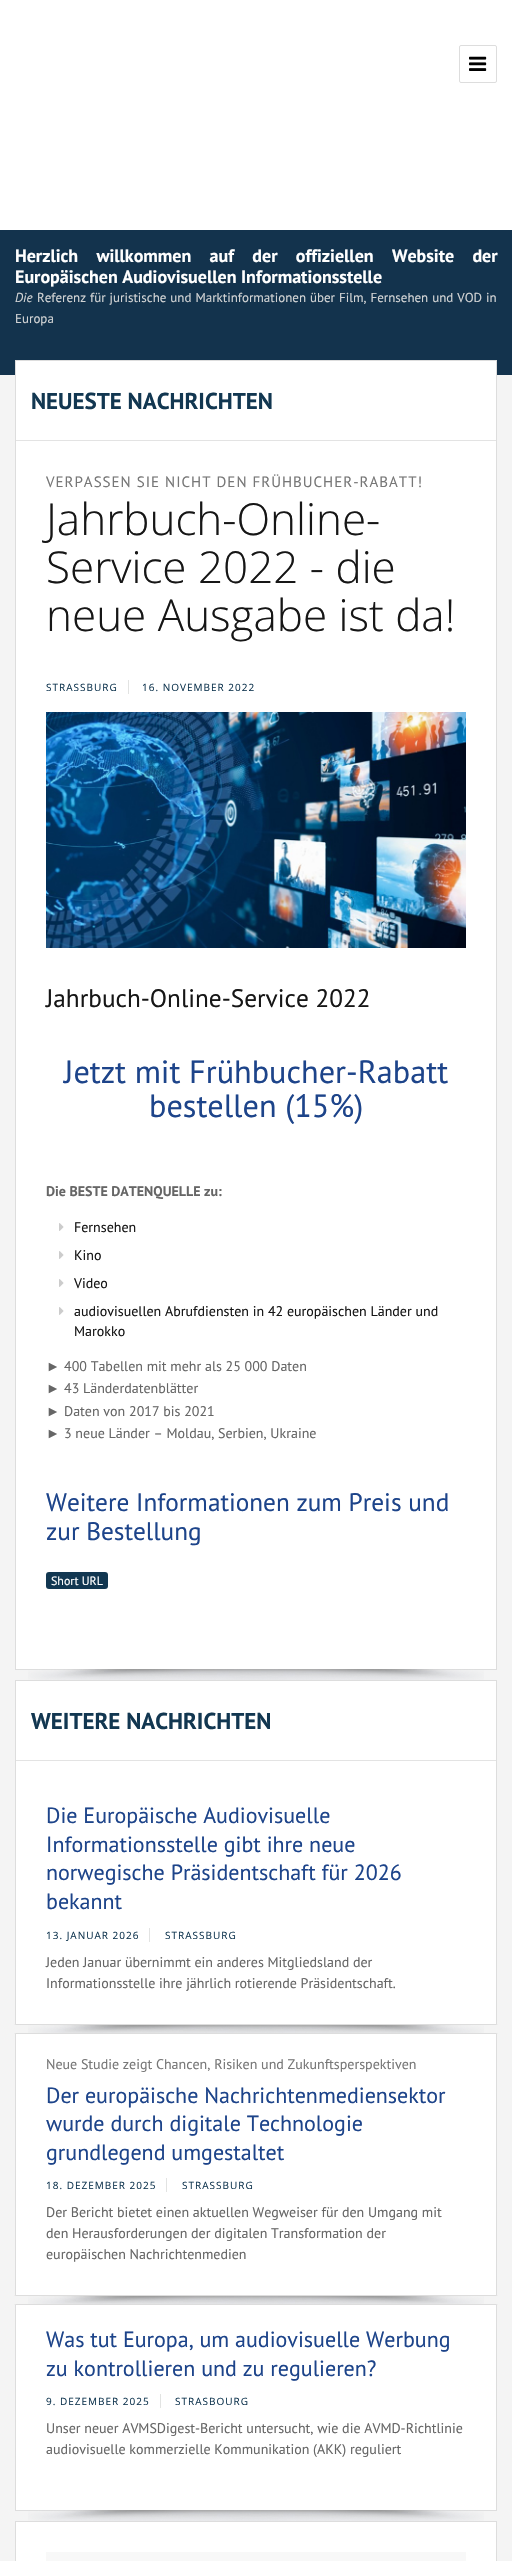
void draw(SkCanvas* canvas) {
    SkPaint paint;
    paint.setAntiAlias(true);
    auto face = [&](const char* family, int weight, float size, bool italic = false) {
        SkFontStyle style(weight, SkFontStyle::kNormal_Width,
            italic ? SkFontStyle::kItalic_Slant : SkFontStyle::kUpright_Slant);
        SkFont result(fontMgr->matchFamilyStyle(family, style), size);
        result.setSubpixel(true);
        return result;
    };
    auto write = [&](const char* s, float x, float y, const SkFont& font, SkColor color) {
        SkPaint ink(SkColor4f::FromColor(color));
        ink.setAntiAlias(true);
        canvas->drawString(s, x, y, font, ink);
    };
    auto writeSpaced = [&](const char* s, float x, float y, const SkFont& font, const SkPaint& ink, float letter, float word) {
        std::vector<SkGlyphID> glyphs(font.countText(s, strlen(s), SkTextEncoding::kUTF8));
        std::vector<float> xs(glyphs.size());
        font.textToGlyphs(s, strlen(s), SkTextEncoding::kUTF8, glyphs);
        font.getXPos(glyphs, xs, x);
        float extra = 0;
        for (size_t i = 0; i < glyphs.size(); i++) {
            xs[i] += extra;
            extra += letter + word * (glyphs[i] == font.unicharToGlyph(' '));
        }
        canvas->drawTextBlob(SkTextBlob::MakeFromPosHGlyphs(glyphs, xs, y, font), 0, 0, ink);
    };
    auto block = [&](float x, float y, float w, float h, SkColor color) {
        SkPaint ink(SkColor4f::FromColor(color));
        ink.setAntiAlias(true);
        canvas->drawRect(SkRect::MakeXYWH(x, y, w, h), ink);
    };
    auto card = [&](float x, float y, float w, float h, float radius, SkColor color) {
        SkPaint ink(SkColor4f::FromColor(color));
        ink.setAntiAlias(true);
        canvas->drawRoundRect(SkRect::MakeXYWH(x, y, w, h), radius, radius, ink);
    };
    auto paste = [&](const char* path, float x, float y, float w, float h) {
        auto image = SkImages::DeferredFromEncodedData(SkData::MakeFromFileName(path));
        canvas->drawImageRect(image, SkRect::MakeXYWH(x, y, w, h), SkSamplingOptions());
    };
    canvas->clear(SkColorSetRGB(244, 244, 244));
    block(0, 0, 512, 230, SK_ColorWHITE);
    paint.setStyle(SkPaint::kStroke_Style);
    paint.setStrokeWidth(1);
    paint.setColor(SkColorSetRGB(221, 221, 221));
    canvas->drawRoundRect(SkRect::MakeXYWH(459.5f, 45.5f, 37, 37), 1.5f, 1.5f, paint);
    paste("pic1.png", 469, 56, 18, 15);
    block(0, 230, 512, 145, SkColorSetRGB(19, 51, 77));
    auto kFont1 = face("PT Sans", 700, 18);
    paint.setStyle(SkPaint::kFill_Style);
    paint.setColor(SK_ColorWHITE);
    writeSpaced("Herzlich willkommen auf der offiziellen Website der", 15, 262, kFont1, paint, 0, 13.75f);
    write("Europäischen Audiovisuellen Informationsstelle", 15, 283, kFont1, SK_ColorWHITE);
    auto kFont2 = face("PT Sans", 400, 13, true);
    write("Die", 15, 302, kFont2, SkColorSetRGB(209, 211, 212));
    auto kFont3 = face("PT Sans", 400, 13);
    paint.setColor(SkColorSetRGB(209, 211, 212));
    writeSpaced("Referenz für juristische und Marktinformationen über Film, Fernsehen und VOD in", 37, 302, kFont3, paint, 0, 0.5f);
    write("Europa", 15, 323, kFont3, SkColorSetRGB(209, 211, 212));
    paint.setColor(SK_ColorWHITE);
    canvas->drawRect(SkRect::MakeXYWH(15.5f, 360.5f, 481, 1309), paint);
    paint.setStyle(SkPaint::kStroke_Style);
    paint.setColor(SkColorSetRGB(221, 221, 221));
    canvas->drawRect(SkRect::MakeXYWH(15.5f, 360.5f, 481, 1309), paint);
    auto kFont4 = face("PT Sans", 700, 23);
    write("NEUESTE NACHRICHTEN", 31, 409, kFont4, SkColorSetRGB(18, 55, 81));
    block(16, 440, 480, 1, SkColorSetRGB(227, 227, 227));
    auto kFont5 = face("PT Sans", 400, 15);
    paint.setStyle(SkPaint::kFill_Style);
    paint.setColor(SkColorSetRGB(119, 119, 119));
    writeSpaced("VERPASSEN SIE NICHT DEN FRÜHBUCHER-RABATT!", 46, 487, kFont5, paint, 1, 0);
    auto kFont6 = face("Open Sans", 300, 44);
    write("Jahrbuch-Online-", 46, 535, kFont6, SkColorSetRGB(22, 22, 22));
    write("Service 2022 - die", 46, 583, kFont6, SkColorSetRGB(22, 22, 22));
    write("neue Ausgabe ist da!", 46, 631, kFont6, SkColorSetRGB(22, 22, 22));
    auto kFont7 = face("Open Sans", 400, 10);
    paint.setColor(SkColorSetRGB(18, 55, 81));
    writeSpaced("STRASSBURG", 46, 691, kFont7, paint, 1, 0);
    block(128, 680, 1, 14, SkColorSetRGB(226, 227, 226));
    writeSpaced("16. NOVEMBER 2022", 142, 691, kFont7, paint, 1, 0);
    paste("pic2.png", 46, 712, 420, 236);
    auto kFont8 = face("PT Sans", 400, 25.25f);
    write("Jahrbuch-Online-Service 2022", 46, 1007, kFont8, SkColorSetRGB(22, 22, 22));
    auto kFont9 = face("PT Sans", 400, 32.25f);
    write("Jetzt mit Frühbucher-Rabatt", 64, 1083, kFont9, SkColorSetRGB(29, 68, 138));
    write("bestellen (15%)", 149, 1117, kFont9, SkColorSetRGB(29, 68, 138));
    auto kFont10 = face("PT Sans", 700, 14);
    write("Die BESTE DATENQUELLE zu:", 46, 1196, kFont10, SkColorSetRGB(102, 102, 102));
    paste("pic3.png", 59, 1223, 5, 8);
    auto kFont11 = face("PT Sans", 400, 14);
    write("Fernsehen", 74, 1232, kFont11, SkColorSetRGB(22, 22, 22));
    paste("pic3.png", 59, 1251, 5, 8);
    write("Kino", 74, 1260, kFont11, SkColorSetRGB(22, 22, 22));
    paste("pic3.png", 59, 1279, 5, 8);
    write("Video", 74, 1288, kFont11, SkColorSetRGB(22, 22, 22));
    paste("pic3.png", 59, 1307, 5, 8);
    write("audiovisuellen Abrufdiensten in 42 europäischen Länder und", 74, 1316, kFont11, SkColorSetRGB(22, 22, 22));
    write("Marokko", 74, 1336, kFont11, SkColorSetRGB(22, 22, 22));
    auto kFont12 = face("Liberation Sans", 400, 14);
    write("►", 46, 1371, kFont12, SkColorSetRGB(102, 102, 102));
    write("400 Tabellen mit mehr als 25 000 Daten", 64, 1371, kFont11, SkColorSetRGB(102, 102, 102));
    write("►", 46, 1393, kFont12, SkColorSetRGB(102, 102, 102));
    write("43 Länderdatenblätter", 64, 1393, kFont11, SkColorSetRGB(102, 102, 102));
    write("►", 46, 1416, kFont12, SkColorSetRGB(102, 102, 102));
    write("Daten von 2017 bis 2021", 64, 1416, kFont11, SkColorSetRGB(102, 102, 102));
    write("►", 46, 1438, kFont12, SkColorSetRGB(102, 102, 102));
    write("3 neue Länder – Moldau, Serbien, Ukraine", 64, 1438, kFont11, SkColorSetRGB(102, 102, 102));
    write("Weitere Informationen zum Preis und", 46, 1511, kFont8, SkColorSetRGB(29, 68, 138));
    write("zur Bestellung", 46, 1540, kFont8, SkColorSetRGB(29, 68, 138));
    card(46, 1572, 62, 17, 3, SkColorSetRGB(18, 55, 81));
    auto kFont13 = face("PT Sans", 400, 12);
    write("Short URL", 51, 1585, kFont13, SK_ColorWHITE);
    paste("pic4.png", 28, 1669, 456, 11);
    paint.setColor(SK_ColorWHITE);
    canvas->drawRect(SkRect::MakeXYWH(15.5f, 1680.5f, 481, 830), paint);
    paint.setStyle(SkPaint::kStroke_Style);
    paint.setColor(SkColorSetRGB(221, 221, 221));
    canvas->drawRect(SkRect::MakeXYWH(15.5f, 1680.5f, 481, 830), paint);
    write("WEITERE NACHRICHTEN", 31, 1729, kFont4, SkColorSetRGB(18, 55, 81));
    block(16, 1760, 480, 1, SkColorSetRGB(227, 227, 227));
    auto kFont14 = face("PT Sans", 400, 22);
    write("Die Europäische Audiovisuelle", 46, 1823, kFont14, SkColorSetRGB(29, 68, 138));
    write("Informationsstelle gibt ihre neue", 46, 1852, kFont14, SkColorSetRGB(29, 68, 138));
    write("norwegische Präsidentschaft für 2026", 46, 1880, kFont14, SkColorSetRGB(29, 68, 138));
    write("bekannt", 46, 1909, kFont14, SkColorSetRGB(29, 68, 138));
    paint.setStyle(SkPaint::kFill_Style);
    paint.setColor(SkColorSetRGB(18, 55, 81));
    writeSpaced("13. JANUAR 2026", 46, 1939, kFont7, paint, 1, 0);
    block(149, 1928, 1, 14, SkColorSetRGB(226, 227, 226));
    writeSpaced("STRASSBURG", 165, 1939, kFont7, paint, 1, 0);
    write("Jeden Januar übernimmt ein anderes Mitgliedsland der", 46, 1967, kFont11, SkColorSetRGB(102, 102, 102));
    write("Informationsstelle ihre jährlich rotierende Präsidentschaft.", 46, 1988, kFont11, SkColorSetRGB(102, 102, 102));
    block(15, 2024, 482, 10, SkColorSetRGB(244, 244, 244));
    paste("pic5.png", 28, 2025, 456, 8);
    paint.setColor(SkColorSetRGB(221, 221, 221));
    canvas->drawPath(SkPathBuilder().moveTo(14, 2024).lineTo(498, 2024).lineTo(496, 2025).lineTo(16, 2025).close().detach(), paint);
    canvas->drawPath(SkPathBuilder().moveTo(498, 2034).lineTo(14, 2034).lineTo(16, 2033).lineTo(496, 2033).close().detach(), paint);
    write("Neue Studie zeigt Chancen, Risiken und Zukunftsperspektiven", 46, 2069, kFont11, SkColorSetRGB(119, 119, 119));
    write("Der europäische Nachrichtenmediensektor", 46, 2103, kFont14, SkColorSetRGB(29, 68, 138));
    write("wurde durch digitale Technologie", 46, 2131, kFont14, SkColorSetRGB(29, 68, 138));
    write("grundlegend umgestaltet", 46, 2160, kFont14, SkColorSetRGB(29, 68, 138));
    paint.setColor(SkColorSetRGB(18, 55, 81));
    writeSpaced("18. DEZEMBER 2025", 46, 2189, kFont7, paint, 1, 0);
    block(166, 2178, 1, 14, SkColorSetRGB(226, 227, 226));
    writeSpaced("STRASSBURG", 182, 2189, kFont7, paint, 1, 0);
    write("Der Bericht bietet einen aktuellen Wegweiser für den Umgang mit", 46, 2217, kFont11, SkColorSetRGB(102, 102, 102));
    write("den Herausforderungen der digitalen Transformation der", 46, 2238, kFont11, SkColorSetRGB(102, 102, 102));
    write("europäischen Nachrichtenmedien", 46, 2259, kFont11, SkColorSetRGB(102, 102, 102));
    block(15, 2295, 482, 10, SkColorSetRGB(244, 244, 244));
    paste("pic5.png", 28, 2296, 456, 8);
    paint.setColor(SkColorSetRGB(221, 221, 221));
    canvas->drawPath(SkPathBuilder().moveTo(14, 2295).lineTo(498, 2295).lineTo(496, 2296).lineTo(16, 2296).close().detach(), paint);
    canvas->drawPath(SkPathBuilder().moveTo(498, 2305).lineTo(14, 2305).lineTo(16, 2304).lineTo(496, 2304).close().detach(), paint);
    write("Was tut Europa, um audiovisuelle Werbung", 46, 2347, kFont14, SkColorSetRGB(29, 68, 138));
    write("zu kontrollieren und zu regulieren?", 46, 2376, kFont14, SkColorSetRGB(29, 68, 138));
    paint.setColor(SkColorSetRGB(18, 55, 81));
    writeSpaced("9. DEZEMBER 2025", 46, 2405, kFont7, paint, 1, 0);
    block(160, 2394, 1, 14, SkColorSetRGB(226, 227, 226));
    writeSpaced("STRASBOURG", 175, 2405, kFont7, paint, 1, 0);
    write("Unser neuer AVMSDigest-Bericht untersucht, wie die AVMD-Richtlinie", 46, 2433, kFont11, SkColorSetRGB(102, 102, 102));
    write("audiovisuelle kommerzielle Kommunikation (AKK) reguliert", 46, 2454, kFont11, SkColorSetRGB(102, 102, 102));
    paste("pic4.png", 28, 2510, 456, 11);
    paint.setColor(SK_ColorWHITE);
    canvas->drawRect(SkRect::MakeXYWH(15.5f, 2521.5f, 481, 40), paint);
    paint.setStyle(SkPaint::kStroke_Style);
    paint.setColor(SkColorSetRGB(221, 221, 221));
    canvas->drawRect(SkRect::MakeXYWH(15.5f, 2521.5f, 481, 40), paint);
    block(46, 2552, 420, 9, SkColorSetRGB(248, 248, 248));
}
